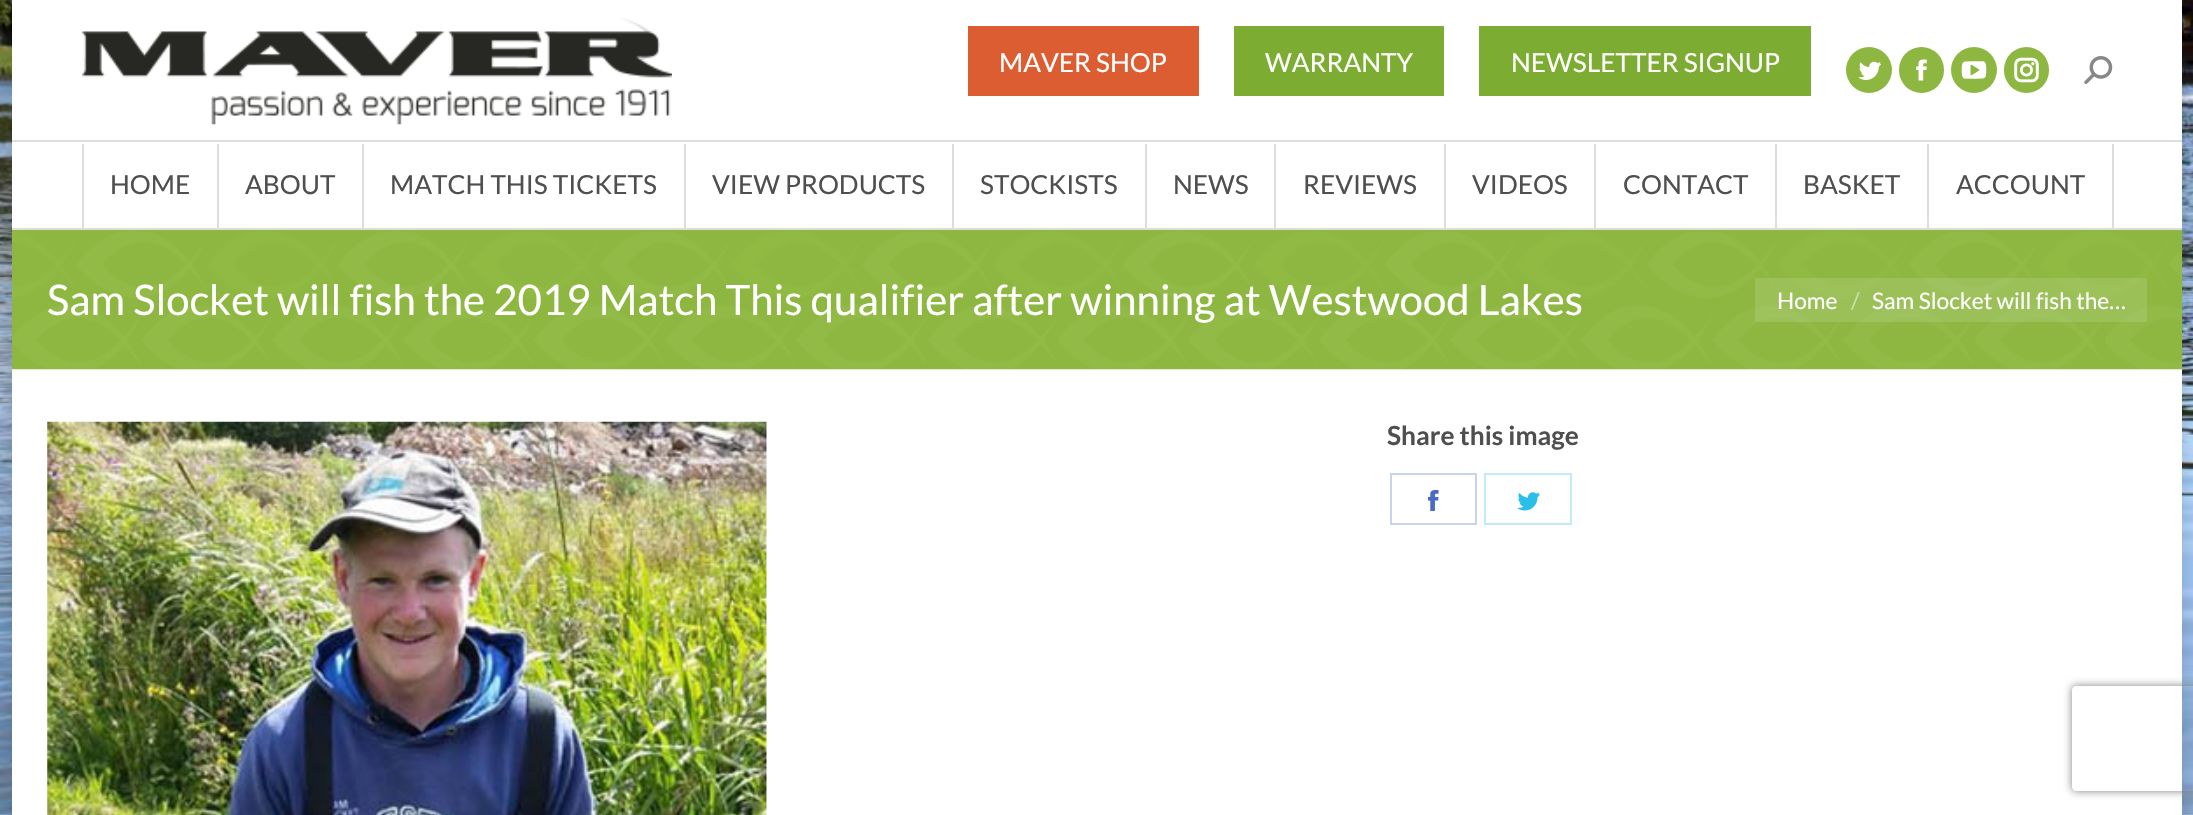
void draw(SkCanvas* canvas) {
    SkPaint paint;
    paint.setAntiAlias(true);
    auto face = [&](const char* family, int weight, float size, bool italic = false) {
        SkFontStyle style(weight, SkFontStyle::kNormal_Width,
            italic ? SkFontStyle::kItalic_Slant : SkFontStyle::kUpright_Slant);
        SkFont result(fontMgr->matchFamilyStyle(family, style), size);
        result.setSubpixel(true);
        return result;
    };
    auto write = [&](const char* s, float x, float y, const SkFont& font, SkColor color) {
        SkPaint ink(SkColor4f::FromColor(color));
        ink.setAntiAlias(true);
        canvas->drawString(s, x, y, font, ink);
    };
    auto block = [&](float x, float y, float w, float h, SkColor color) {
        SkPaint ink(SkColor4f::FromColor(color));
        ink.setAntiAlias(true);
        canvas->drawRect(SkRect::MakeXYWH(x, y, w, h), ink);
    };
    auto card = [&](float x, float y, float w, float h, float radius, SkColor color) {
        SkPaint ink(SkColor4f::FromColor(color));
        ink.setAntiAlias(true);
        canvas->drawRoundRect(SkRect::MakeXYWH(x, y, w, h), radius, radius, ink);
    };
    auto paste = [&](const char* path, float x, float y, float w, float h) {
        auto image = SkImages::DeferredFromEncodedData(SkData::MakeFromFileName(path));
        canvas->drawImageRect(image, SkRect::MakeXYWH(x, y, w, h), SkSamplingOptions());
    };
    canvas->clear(SK_ColorWHITE);
    paste("pic1.png", 0, 0, 2193, 815);
    paint.setColor(SkColorSetARGB(38, 0, 0, 0));
    paint.setMaskFilter(SkMaskFilter::MakeBlur(kNormal_SkBlurStyle, 10.5f));
    canvas->drawRect(SkRect::MakeXYWH(12, 0, 2170, 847), paint);
    paint.setMaskFilter(nullptr);
    block(12, 0, 2170, 815, SK_ColorWHITE);
    block(12, 230, 1, 139, SkColorSetRGB(141, 183, 65));
    paste("pic8.png", 12, 229, 2171, 141);
    block(12, 228, 2170, 2, SkColorSetRGB(221, 221, 221));
    paste("pic2.png", 82, 18, 590, 107);
    block(968, 26, 231, 70, SkColorSetRGB(219, 93, 49));
    auto kFont1 = face("Lato", 400, 26.25f);
    write("MAVER SHOP", 999, 72, kFont1, SK_ColorWHITE);
    block(1234, 26, 210, 70, SkColorSetRGB(124, 172, 50));
    write("WARRANTY", 1265, 72, kFont1, SK_ColorWHITE);
    block(1479, 26, 332, 70, SkColorSetRGB(124, 172, 50));
    write("NEWSLETTER SIGNUP", 1511, 72, kFont1, SK_ColorWHITE);
    paint.setColor(SkColorSetRGB(141, 183, 65));
    canvas->drawCircle(1869, 70, 23, paint);
    paste("pic3.png", 1858, 61, 23, 19);
    card(1899, 47, 45, 46, 22.5f, SkColorSetRGB(141, 183, 65));
    paste("pic4.png", 1916, 59, 11, 22);
    canvas->drawCircle(1974, 70, 23, paint);
    paste("pic5.png", 1961, 61, 26, 18);
    card(2004, 47, 45, 46, 22.5f, SkColorSetRGB(141, 183, 65));
    paste("pic6.png", 2014, 57, 25, 26);
    paste("pic7.png", 2084, 56, 29, 28);
    block(12, 140, 2170, 2, SkColorSetRGB(221, 221, 221));
    block(82, 144, 2, 85, SkColorSetRGB(221, 221, 221));
    write("HOME", 110, 194, kFont1, SkColorSetRGB(79, 79, 79));
    block(217, 144, 2, 85, SkColorSetRGB(221, 221, 221));
    write("ABOUT", 245, 194, kFont1, SkColorSetRGB(79, 79, 79));
    block(362, 144, 2, 85, SkColorSetRGB(221, 221, 221));
    write("MATCH THIS TICKETS", 390, 194, kFont1, SkColorSetRGB(79, 79, 79));
    block(684, 144, 2, 85, SkColorSetRGB(221, 221, 221));
    write("VIEW PRODUCTS", 712, 194, kFont1, SkColorSetRGB(79, 79, 79));
    block(952, 144, 2, 85, SkColorSetRGB(221, 221, 221));
    write("STOCKISTS", 980, 194, kFont1, SkColorSetRGB(79, 79, 79));
    block(1145, 144, 2, 85, SkColorSetRGB(221, 221, 221));
    write("NEWS", 1173, 194, kFont1, SkColorSetRGB(79, 79, 79));
    block(1274, 144, 2, 85, SkColorSetRGB(221, 221, 221));
    write("REVIEWS", 1303, 194, kFont1, SkColorSetRGB(79, 79, 79));
    block(1444, 144, 2, 85, SkColorSetRGB(221, 221, 221));
    write("VIDEOS", 1472, 194, kFont1, SkColorSetRGB(79, 79, 79));
    block(1594, 144, 2, 85, SkColorSetRGB(221, 221, 221));
    write("CONTACT", 1623, 194, kFont1, SkColorSetRGB(79, 79, 79));
    block(1775, 144, 2, 85, SkColorSetRGB(221, 221, 221));
    write("BASKET", 1803, 194, kFont1, SkColorSetRGB(79, 79, 79));
    block(1927, 144, 2, 85, SkColorSetRGB(221, 221, 221));
    write("ACCOUNT", 1956, 194, kFont1, SkColorSetRGB(79, 79, 79));
    block(2112, 144, 2, 85, SkColorSetRGB(221, 221, 221));
    auto kFont2 = face("Lato", 400, 42);
    write("Sam Slocket will fish the 2019 Match This qualifier after winning at Westwood Lakes", 47, 315, kFont2, SK_ColorWHITE);
    block(1755, 278, 392, 44, SkColorSetARGB(31, 255, 255, 255));
    auto kFont3 = face("Lato", 400, 22.75f);
    write("Home", 1777, 309, kFont3, SK_ColorWHITE);
    write("/", 1851, 309, kFont3, SkColorSetRGB(205, 223, 171));
    write("Sam Slocket will fish the…", 1872, 309, kFont3, SK_ColorWHITE);
    paste("pic9.png", 47, 421, 720, 394);
    auto kFont4 = face("Lato", 700, 26.25f);
    write("Share this image", 1387, 445, kFont4, SkColorSetRGB(79, 79, 79));
    paint.setStyle(SkPaint::kStroke_Style);
    paint.setStrokeWidth(2);
    paint.setColor(SkColorSetRGB(201, 210, 238));
    canvas->drawRect(SkRect::MakeXYWH(1391, 474, 85, 50), paint);
    paste("pic10.png", 1427, 490, 12, 21);
    paint.setColor(SkColorSetRGB(191, 236, 249));
    canvas->drawRect(SkRect::MakeXYWH(1485, 474, 86, 50), paint);
    paste("pic11.png", 1517, 492, 23, 19);
    canvas->save();
    canvas->clipPath(SkPathBuilder(SkPathFillType::kEvenOdd).moveTo(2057, 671).lineTo(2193, 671).lineTo(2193, 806).lineTo(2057, 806).close().moveTo(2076, 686).lineTo(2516, 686).cubicTo(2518, 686, 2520, 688, 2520, 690).lineTo(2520, 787).cubicTo(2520, 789, 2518, 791, 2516, 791).lineTo(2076, 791).cubicTo(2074, 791, 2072, 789, 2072, 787).lineTo(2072, 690).cubicTo(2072, 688, 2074, 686, 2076, 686).close().detach(), true);
    paint.setStyle(SkPaint::kFill_Style);
    paint.setColor(SkColorSetRGB(128, 128, 128));
    paint.setMaskFilter(SkMaskFilter::MakeBlur(kNormal_SkBlurStyle, 4.5f));
    canvas->drawRoundRect(SkRect::MakeXYWH(2072, 686, 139, 105), 4, 4, paint);
    paint.setMaskFilter(nullptr);
    canvas->restore();
}
